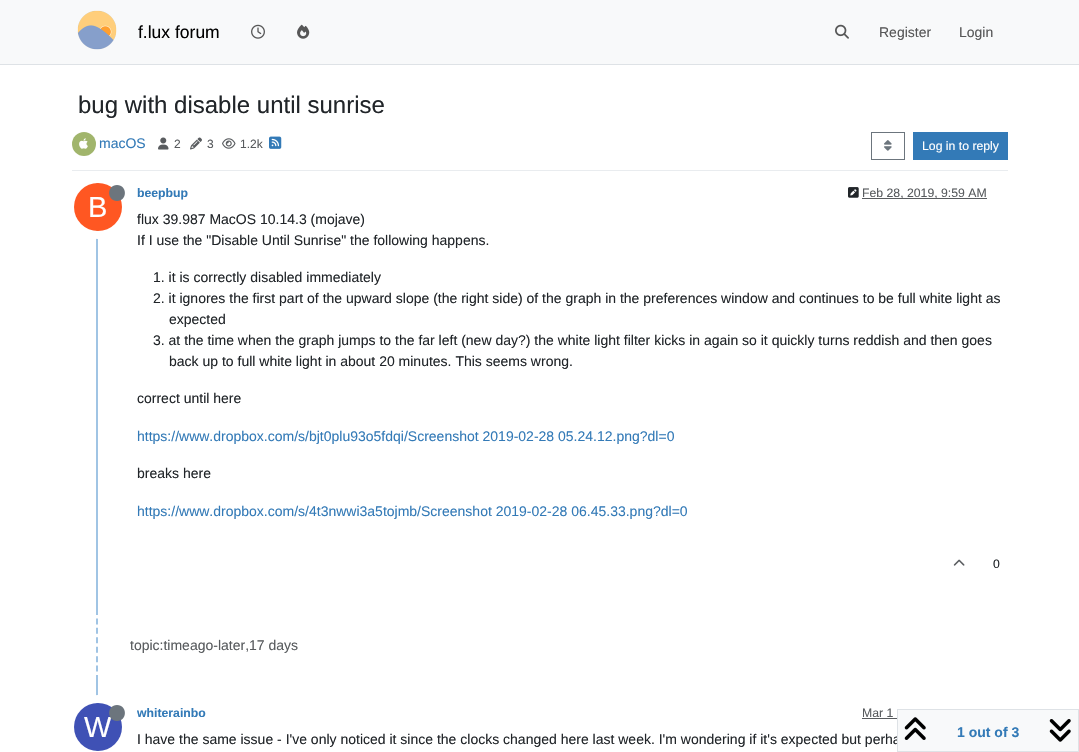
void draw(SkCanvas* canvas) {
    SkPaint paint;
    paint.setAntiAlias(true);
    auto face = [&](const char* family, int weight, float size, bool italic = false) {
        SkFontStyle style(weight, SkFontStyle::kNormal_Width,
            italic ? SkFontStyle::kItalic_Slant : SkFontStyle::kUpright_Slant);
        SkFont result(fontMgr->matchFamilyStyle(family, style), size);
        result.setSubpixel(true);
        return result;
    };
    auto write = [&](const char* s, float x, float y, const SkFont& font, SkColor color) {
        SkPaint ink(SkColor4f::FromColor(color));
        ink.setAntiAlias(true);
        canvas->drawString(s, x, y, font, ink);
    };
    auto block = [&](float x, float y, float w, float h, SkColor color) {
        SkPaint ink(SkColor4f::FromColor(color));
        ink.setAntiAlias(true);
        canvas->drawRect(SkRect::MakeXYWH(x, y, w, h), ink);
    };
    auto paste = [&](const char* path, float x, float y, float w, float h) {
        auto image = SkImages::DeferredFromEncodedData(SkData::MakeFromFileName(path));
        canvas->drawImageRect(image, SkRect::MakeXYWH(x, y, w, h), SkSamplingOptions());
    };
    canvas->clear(SK_ColorWHITE);
    block(0, 0, 1079, 64, SkColorSetRGB(248, 249, 250));
    block(0, 64, 1079, 1, SkColorSetRGB(222, 226, 230));
    paste("pic1.png", 77, 10, 40, 40);
    auto kFont1 = face("Liberation Sans", 400, 17.5f);
    write("f.lux forum", 138, 38, kFont1, SK_ColorBLACK);
    paste("pic2.png", 251, 24, 14, 15);
    paste("pic3.png", 297, 24, 13, 15);
    paste("pic4.png", 835, 24, 14, 15);
    auto kFont2 = face("Liberation Sans", 400, 14);
    write("Register", 879, 37, kFont2, SkColorSetRGB(87, 87, 88));
    write("Login", 959, 37, kFont2, SkColorSetRGB(87, 87, 88));
    auto kFont3 = face("Liberation Sans", 400, 24);
    write("bug with disable until sunrise", 78, 113, kFont3, SkColorSetRGB(33, 37, 41));
    block(72, 170, 936, 1, SkColorSetRGB(233, 236, 239));
    paint.setColor(SkColorSetRGB(161, 181, 108));
    canvas->drawCircle(84, 144, 12, paint);
    paste("pic5.png", 79, 138, 9, 11);
    write("macOS", 99, 148, kFont2, SkColorSetRGB(51, 122, 183));
    paste("pic6.png", 158, 137, 11, 13);
    auto kFont4 = face("Liberation Sans", 400, 12);
    write("2", 174, 148, kFont4, SkColorSetRGB(88, 91, 94));
    paste("pic7.png", 190, 137, 12, 13);
    write("3", 207, 148, kFont4, SkColorSetRGB(88, 91, 94));
    paste("pic8.png", 222, 138, 14, 11);
    write("1.2k", 240, 148, kFont4, SkColorSetRGB(88, 91, 94));
    paste("pic9.png", 269, 136, 13, 13);
    paint.setStyle(SkPaint::kStroke_Style);
    paint.setStrokeWidth(1);
    paint.setColor(SkColorSetRGB(108, 117, 125));
    canvas->drawRect(SkRect::MakeXYWH(871.5f, 132.5f, 33, 27), paint);
    paste("pic10.png", 884, 140, 8, 11);
    block(913, 132, 95, 28, SkColorSetRGB(51, 122, 183));
    auto kFont5 = face("Liberation Sans", 400, 12.25f);
    write("Log in to reply", 922, 150, kFont5, SK_ColorWHITE);
    block(96, 181, 2, 428, SkColorSetRGB(160, 196, 228));
    auto kFont6 = face("Liberation Sans", 700, 12.25f);
    write("beepbup", 137, 197, kFont6, SkColorSetRGB(51, 122, 183));
    paste("pic11.png", 848, 187, 11, 11);
    block(862, 198, 125, 1, SkColorSetRGB(89, 92, 95));
    write("Feb 28, 2019, 9:59 AM", 862, 197, kFont5, SkColorSetRGB(88, 91, 94));
    paint.setStrokeWidth(8);
    paint.setColor(SK_ColorWHITE);
    canvas->drawCircle(98, 207, 28, paint);
    paint.setStyle(SkPaint::kFill_Style);
    paint.setColor(SkColorSetRGB(255, 87, 34));
    canvas->drawCircle(98, 207, 24, paint);
    paint.setColor(SkColorSetRGB(108, 117, 125));
    canvas->drawPath(SkPathBuilder().moveTo(117, 201).cubicTo(127.5f, 201, 127.5f, 185, 117, 185).cubicTo(106.5f, 185, 106.5f, 201, 117, 201).close().detach(), paint);
    auto kFont7 = face("Liberation Sans", 400, 29);
    write("B", 88, 217, kFont7, SK_ColorWHITE);
    write("flux 39.987 MacOS 10.14.3 (mojave)", 137, 224, kFont2, SkColorSetRGB(33, 37, 41));
    write("If I use the \"Disable Until Sunrise\" the following happens.", 137, 245, kFont2, SkColorSetRGB(33, 37, 41));
    write("1. it is correctly disabled immediately", 153, 282, kFont2, SkColorSetRGB(33, 37, 41));
    write("2. it ignores the first part of the upward slope (the right side) of the graph in the preferences window and continues to be full white light as", 153, 303, kFont2, SkColorSetRGB(33, 37, 41));
    write("expected", 169, 324, kFont2, SkColorSetRGB(33, 37, 41));
    write("3. at the time when the graph jumps to the far left (new day?) the white light filter kicks in again so it quickly turns reddish and then goes", 153, 345, kFont2, SkColorSetRGB(33, 37, 41));
    write("back up to full white light in about 20 minutes. This seems wrong.", 169, 366, kFont2, SkColorSetRGB(33, 37, 41));
    write("correct until here", 137, 403, kFont2, SkColorSetRGB(33, 37, 41));
    write("https://www.dropbox.com/s/bjt0plu93o5fdqi/Screenshot 2019-02-28 05.24.12.png?dl=0", 137, 441, kFont2, SkColorSetRGB(51, 122, 183));
    write("breaks here", 137, 478, kFont2, SkColorSetRGB(33, 37, 41));
    write("https://www.dropbox.com/s/4t3nwwi3a5tojmb/Screenshot 2019-02-28 06.45.33.png?dl=0", 137, 516, kFont2, SkColorSetRGB(51, 122, 183));
    paste("pic12.png", 953, 559, 12, 7);
    write("0", 993, 568, kFont5, SkColorSetRGB(33, 37, 41));
    paint.setStyle(SkPaint::kStroke_Style);
    paint.setStrokeWidth(2);
    paint.setColor(SkColorSetRGB(160, 196, 228));
    paint.setPathEffect(SkDashPathEffect::Make({{6, 3.43f}}, 0));
    canvas->drawPath(SkPathBuilder().moveTo(97, 609).lineTo(97, 681).detach(), paint);
    paint.setPathEffect(nullptr);
    write("topic:timeago-later,17 days", 130, 650, kFont2, SkColorSetRGB(88, 91, 94));
    block(96, 681, 2, 71, SkColorSetRGB(160, 196, 228));
    write("whiterainbo", 137, 717, kFont6, SkColorSetRGB(51, 122, 183));
    write("Mar 1", 862, 717, kFont5, SkColorSetRGB(88, 91, 94));
    block(862, 718, 35, 1, SkColorSetRGB(89, 92, 95));
    paint.setStrokeWidth(8);
    paint.setColor(SK_ColorWHITE);
    canvas->drawCircle(98, 727, 28, paint);
    paint.setStyle(SkPaint::kFill_Style);
    paint.setColor(SkColorSetRGB(63, 81, 181));
    canvas->drawCircle(98, 727, 24, paint);
    write("W", 84, 737, kFont7, SK_ColorWHITE);
    paint.setColor(SkColorSetRGB(108, 117, 125));
    canvas->drawPath(SkPathBuilder().moveTo(117, 721).cubicTo(127.5f, 721, 127.5f, 705, 117, 705).cubicTo(106.5f, 705, 106.5f, 721, 117, 721).close().detach(), paint);
    write("I have the same issue - I've only noticed it since the clocks changed here last week. I'm wondering if it's expected but perha", 137, 744, kFont2, SkColorSetRGB(33, 37, 41));
    paint.setColor(SkColorSetRGB(248, 249, 250));
    canvas->drawRect(SkRect::MakeXYWH(897.5f, 709.5f, 181, 42), paint);
    paint.setStyle(SkPaint::kStroke_Style);
    paint.setStrokeWidth(1);
    paint.setColor(SkColorSetRGB(222, 226, 230));
    canvas->drawRect(SkRect::MakeXYWH(897.5f, 709.5f, 181, 42), paint);
    paste("pic13.png", 904, 717, 22, 23);
    auto kFont8 = face("Liberation Sans", 700, 14);
    write("1 out of 3", 957, 737, kFont8, SkColorSetRGB(51, 122, 183));
    paste("pic14.png", 1049, 719, 22, 23);
}
